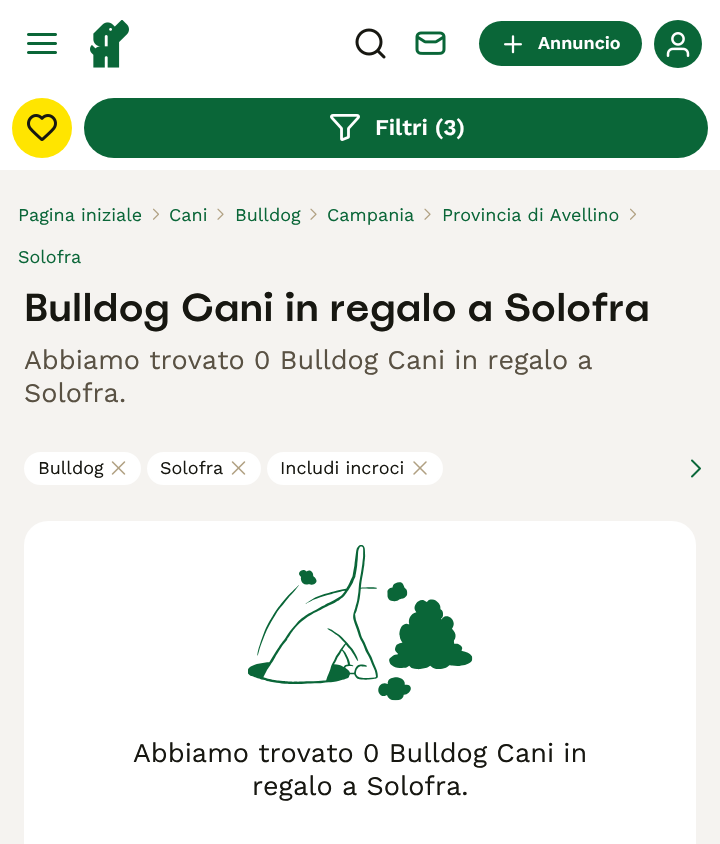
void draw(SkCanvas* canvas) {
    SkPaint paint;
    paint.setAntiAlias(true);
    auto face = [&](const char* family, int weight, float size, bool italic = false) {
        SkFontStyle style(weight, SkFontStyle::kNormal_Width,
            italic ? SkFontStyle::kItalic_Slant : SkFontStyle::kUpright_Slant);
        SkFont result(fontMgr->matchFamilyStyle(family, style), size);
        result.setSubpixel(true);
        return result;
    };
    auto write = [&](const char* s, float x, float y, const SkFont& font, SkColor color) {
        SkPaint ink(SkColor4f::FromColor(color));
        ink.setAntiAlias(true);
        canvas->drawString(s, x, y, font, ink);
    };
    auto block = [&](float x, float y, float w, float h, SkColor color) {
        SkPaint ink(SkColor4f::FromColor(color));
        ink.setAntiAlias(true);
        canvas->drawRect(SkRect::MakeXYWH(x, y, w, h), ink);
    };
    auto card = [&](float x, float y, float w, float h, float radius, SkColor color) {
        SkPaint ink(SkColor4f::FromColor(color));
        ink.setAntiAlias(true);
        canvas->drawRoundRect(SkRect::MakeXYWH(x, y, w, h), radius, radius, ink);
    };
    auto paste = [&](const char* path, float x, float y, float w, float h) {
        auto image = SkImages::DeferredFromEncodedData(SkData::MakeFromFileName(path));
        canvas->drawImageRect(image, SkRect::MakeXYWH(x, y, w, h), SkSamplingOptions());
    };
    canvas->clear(SkColorSetRGB(245, 243, 240));
    block(0, 0, 720, 170, SK_ColorWHITE);
    paste("pic1.png", 27, 33, 30, 21);
    paste("pic2.png", 90, 20, 39, 48);
    paste("pic3.png", 355, 28, 31, 31);
    paste("pic4.png", 415, 31, 31, 24);
    card(479, 21, 163, 45, 22.5f, SkColorSetRGB(10, 102, 56));
    paste("pic5.png", 504, 35, 18, 19);
    auto kFont1 = face("Work Sans", 600, 18);
    write("Annuncio", 538, 49, kFont1, SK_ColorWHITE);
    paint.setColor(SkColorSetRGB(10, 102, 56));
    canvas->drawCircle(678, 44, 24, paint);
    paste("pic6.png", 666, 32, 24, 25);
    paint.setColor(SkColorSetRGB(255, 229, 0));
    canvas->drawCircle(42, 128, 30, paint);
    paste("pic7.png", 27, 114, 30, 27);
    card(84, 98, 624, 60, 30, SkColorSetRGB(10, 102, 56));
    paste("pic8.png", 330, 114, 30, 27);
    auto kFont2 = face("Work Sans", 600, 22.5f);
    write("Filtri (3)", 375, 135, kFont2, SK_ColorWHITE);
    auto kFont3 = face("Work Sans", 400, 18);
    write("Pagina iniziale", 18, 221, kFont3, SkColorSetRGB(10, 102, 56));
    paste("pic9.png", 153, 208, 6, 12);
    write("Cani", 169, 221, kFont3, SkColorSetRGB(10, 102, 56));
    paste("pic10.png", 217, 208, 7, 12);
    write("Bulldog", 235, 221, kFont3, SkColorSetRGB(10, 102, 56));
    paste("pic10.png", 310, 208, 7, 12);
    write("Campania", 327, 221, kFont3, SkColorSetRGB(10, 102, 56));
    paste("pic10.png", 424, 208, 7, 12);
    write("Provincia di Avellino", 442, 221, kFont3, SkColorSetRGB(10, 102, 56));
    paste("pic9.png", 630, 208, 6, 12);
    write("Solofra", 18, 263, kFont3, SkColorSetRGB(10, 102, 56));
    auto kFont4 = face("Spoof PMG", 500, 39);
    write("Bulldog Cani in regalo a Solofra", 24, 321, kFont4, SkColorSetRGB(23, 23, 17));
    auto kFont5 = face("Work Sans", 400, 27);
    write("Abbiamo trovato 0 Bulldog Cani in regalo a", 24, 369, kFont5, SkColorSetRGB(89, 81, 67));
    write("Solofra.", 24, 402, kFont5, SkColorSetRGB(89, 81, 67));
    paint.setColor(SK_ColorWHITE);
    canvas->drawRoundRect(SkRect::MakeXYWH(25, 453, 115, 31), 15.5f, 15.5f, paint);
    paint.setStyle(SkPaint::kStroke_Style);
    paint.setStrokeWidth(2);
    canvas->drawRoundRect(SkRect::MakeXYWH(25, 453, 115, 31), 15.5f, 15.5f, paint);
    write("Bulldog", 38, 474, kFont3, SkColorSetRGB(23, 23, 17));
    paste("pic11.png", 111, 461, 15, 14);
    paint.setStyle(SkPaint::kFill_Style);
    canvas->drawRoundRect(SkRect::MakeXYWH(148, 453, 112, 31), 15.5f, 15.5f, paint);
    paint.setStyle(SkPaint::kStroke_Style);
    canvas->drawRoundRect(SkRect::MakeXYWH(148, 453, 112, 31), 15.5f, 15.5f, paint);
    write("Solofra", 160, 474, kFont3, SkColorSetRGB(23, 23, 17));
    paste("pic11.png", 231, 461, 15, 14);
    paint.setStyle(SkPaint::kFill_Style);
    canvas->drawRoundRect(SkRect::MakeXYWH(268, 453, 174, 31), 15.5f, 15.5f, paint);
    paint.setStyle(SkPaint::kStroke_Style);
    canvas->drawRoundRect(SkRect::MakeXYWH(268, 453, 174, 31), 15.5f, 15.5f, paint);
    write("Includi incroci", 280, 474, kFont3, SkColorSetRGB(23, 23, 17));
    paste("pic12.png", 413, 461, 14, 14);
    paste("pic13.png", 691, 459, 10, 19);
    card(24, 521, 672, 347, 24, SK_ColorWHITE);
    paste("pic14.png", 248, 545, 225, 156);
    write("Abbiamo trovato 0 Bulldog Cani in", 133, 762, kFont5, SkColorSetRGB(23, 23, 17));
    write("regalo a Solofra.", 252, 795, kFont5, SkColorSetRGB(23, 23, 17));
}
